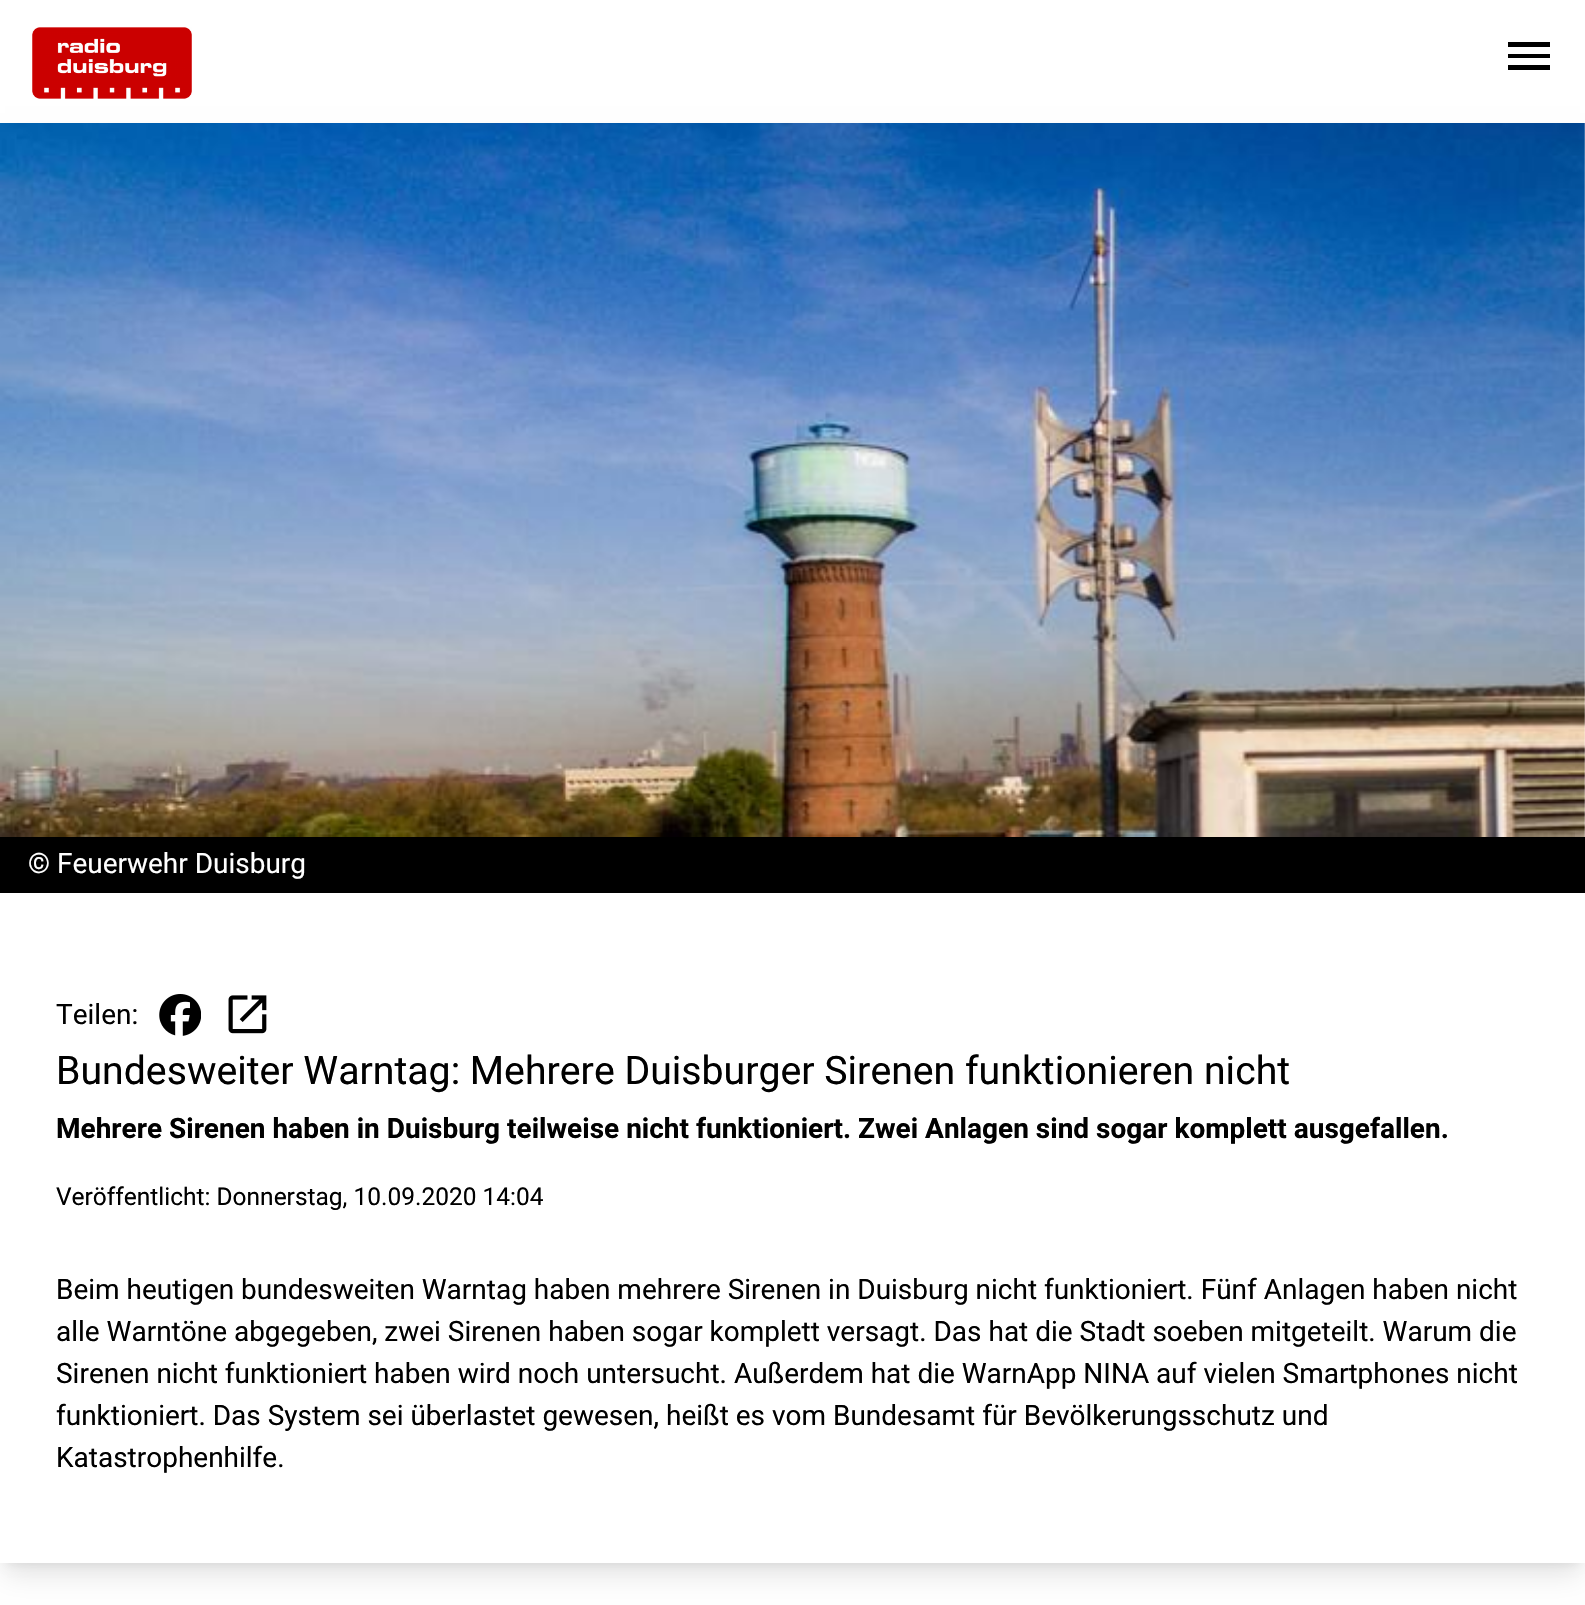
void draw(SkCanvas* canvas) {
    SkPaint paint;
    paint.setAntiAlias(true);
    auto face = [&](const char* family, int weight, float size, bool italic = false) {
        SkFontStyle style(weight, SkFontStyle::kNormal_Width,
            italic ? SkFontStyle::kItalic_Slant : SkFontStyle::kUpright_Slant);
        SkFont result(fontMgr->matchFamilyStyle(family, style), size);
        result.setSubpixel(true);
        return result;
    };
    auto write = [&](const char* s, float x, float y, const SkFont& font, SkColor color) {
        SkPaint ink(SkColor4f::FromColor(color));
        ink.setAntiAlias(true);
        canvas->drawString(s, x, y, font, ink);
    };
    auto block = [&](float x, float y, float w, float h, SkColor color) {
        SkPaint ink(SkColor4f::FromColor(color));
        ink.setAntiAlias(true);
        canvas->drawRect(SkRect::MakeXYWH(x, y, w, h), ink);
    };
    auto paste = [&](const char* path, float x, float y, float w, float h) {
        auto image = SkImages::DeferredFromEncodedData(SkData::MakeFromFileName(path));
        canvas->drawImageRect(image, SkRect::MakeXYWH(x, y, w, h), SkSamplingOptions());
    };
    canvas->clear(SK_ColorWHITE);
    paste("pic1.png", 32, 27, 160, 72);
    paint.setColor(SK_ColorBLACK);
    canvas->drawPath(SkPathBuilder().moveTo(1508, 70).lineTo(1508, 65).lineTo(1550, 65).lineTo(1550, 70).close().moveTo(1508, 58).lineTo(1508, 54).lineTo(1550, 54).lineTo(1550, 58).close().moveTo(1508, 47).lineTo(1508, 42).lineTo(1550, 42).lineTo(1550, 47).close().detach(), paint);
    paint.setColor(SkColorSetARGB(26, 0, 0, 0));
    paint.setMaskFilter(SkMaskFilter::MakeBlur(kNormal_SkBlurStyle, 5));
    canvas->drawRect(SkRect::MakeXYWH(7, 137, 1572, 1426), paint);
    paint.setMaskFilter(nullptr);
    paint.setMaskFilter(SkMaskFilter::MakeBlur(kNormal_SkBlurStyle, 13));
    canvas->drawRect(SkRect::MakeXYWH(5, 145, 1575, 1430), paint);
    paint.setMaskFilter(nullptr);
    block(0, 127, 1585, 1436, SK_ColorWHITE);
    paste("pic2.png", 0, 123, 1585, 714);
    block(0, 837, 1585, 56, SK_ColorBLACK);
    auto kFont1 = face("Roboto", 400, 28);
    write("© Feuerwehr Duisburg", 28, 873, kFont1, SK_ColorWHITE);
    write("Teilen:", 56, 1024, kFont1, SK_ColorBLACK);
    paste("pic3.png", 159, 994, 42, 42);
    paste("pic4.png", 228, 995, 39, 39);
    auto kFont2 = face("Roboto", 400, 39.25f);
    write("Bundesweiter Warntag: Mehrere Duisburger Sirenen funktionieren nicht", 56, 1084, kFont2, SK_ColorBLACK);
    auto kFont3 = face("Roboto", 700, 28);
    write("Mehrere Sirenen haben in Duisburg teilweise nicht funktioniert. Zwei Anlagen sind sogar komplett ausgefallen.", 56, 1138, kFont3, SK_ColorBLACK);
    auto kFont4 = face("Roboto", 400, 24.5f);
    write("Veröffentlicht: Donnerstag, 10.09.2020 14:04", 56, 1205, kFont4, SK_ColorBLACK);
    write("Beim heutigen bundesweiten Warntag haben mehrere Sirenen in Duisburg nicht funktioniert. Fünf Anlagen haben nicht", 56, 1299, kFont1, SK_ColorBLACK);
    write("alle Warntöne abgegeben, zwei Sirenen haben sogar komplett versagt. Das hat die Stadt soeben mitgeteilt. Warum die", 56, 1341, kFont1, SK_ColorBLACK);
    write("Sirenen nicht funktioniert haben wird noch untersucht. Außerdem hat die WarnApp NINA auf vielen Smartphones nicht", 56, 1383, kFont1, SK_ColorBLACK);
    write("funktioniert. Das System sei überlastet gewesen, heißt es vom Bundesamt für Bevölkerungsschutz und", 56, 1425, kFont1, SK_ColorBLACK);
    write("Katastrophenhilfe.", 56, 1467, kFont1, SK_ColorBLACK);
}
